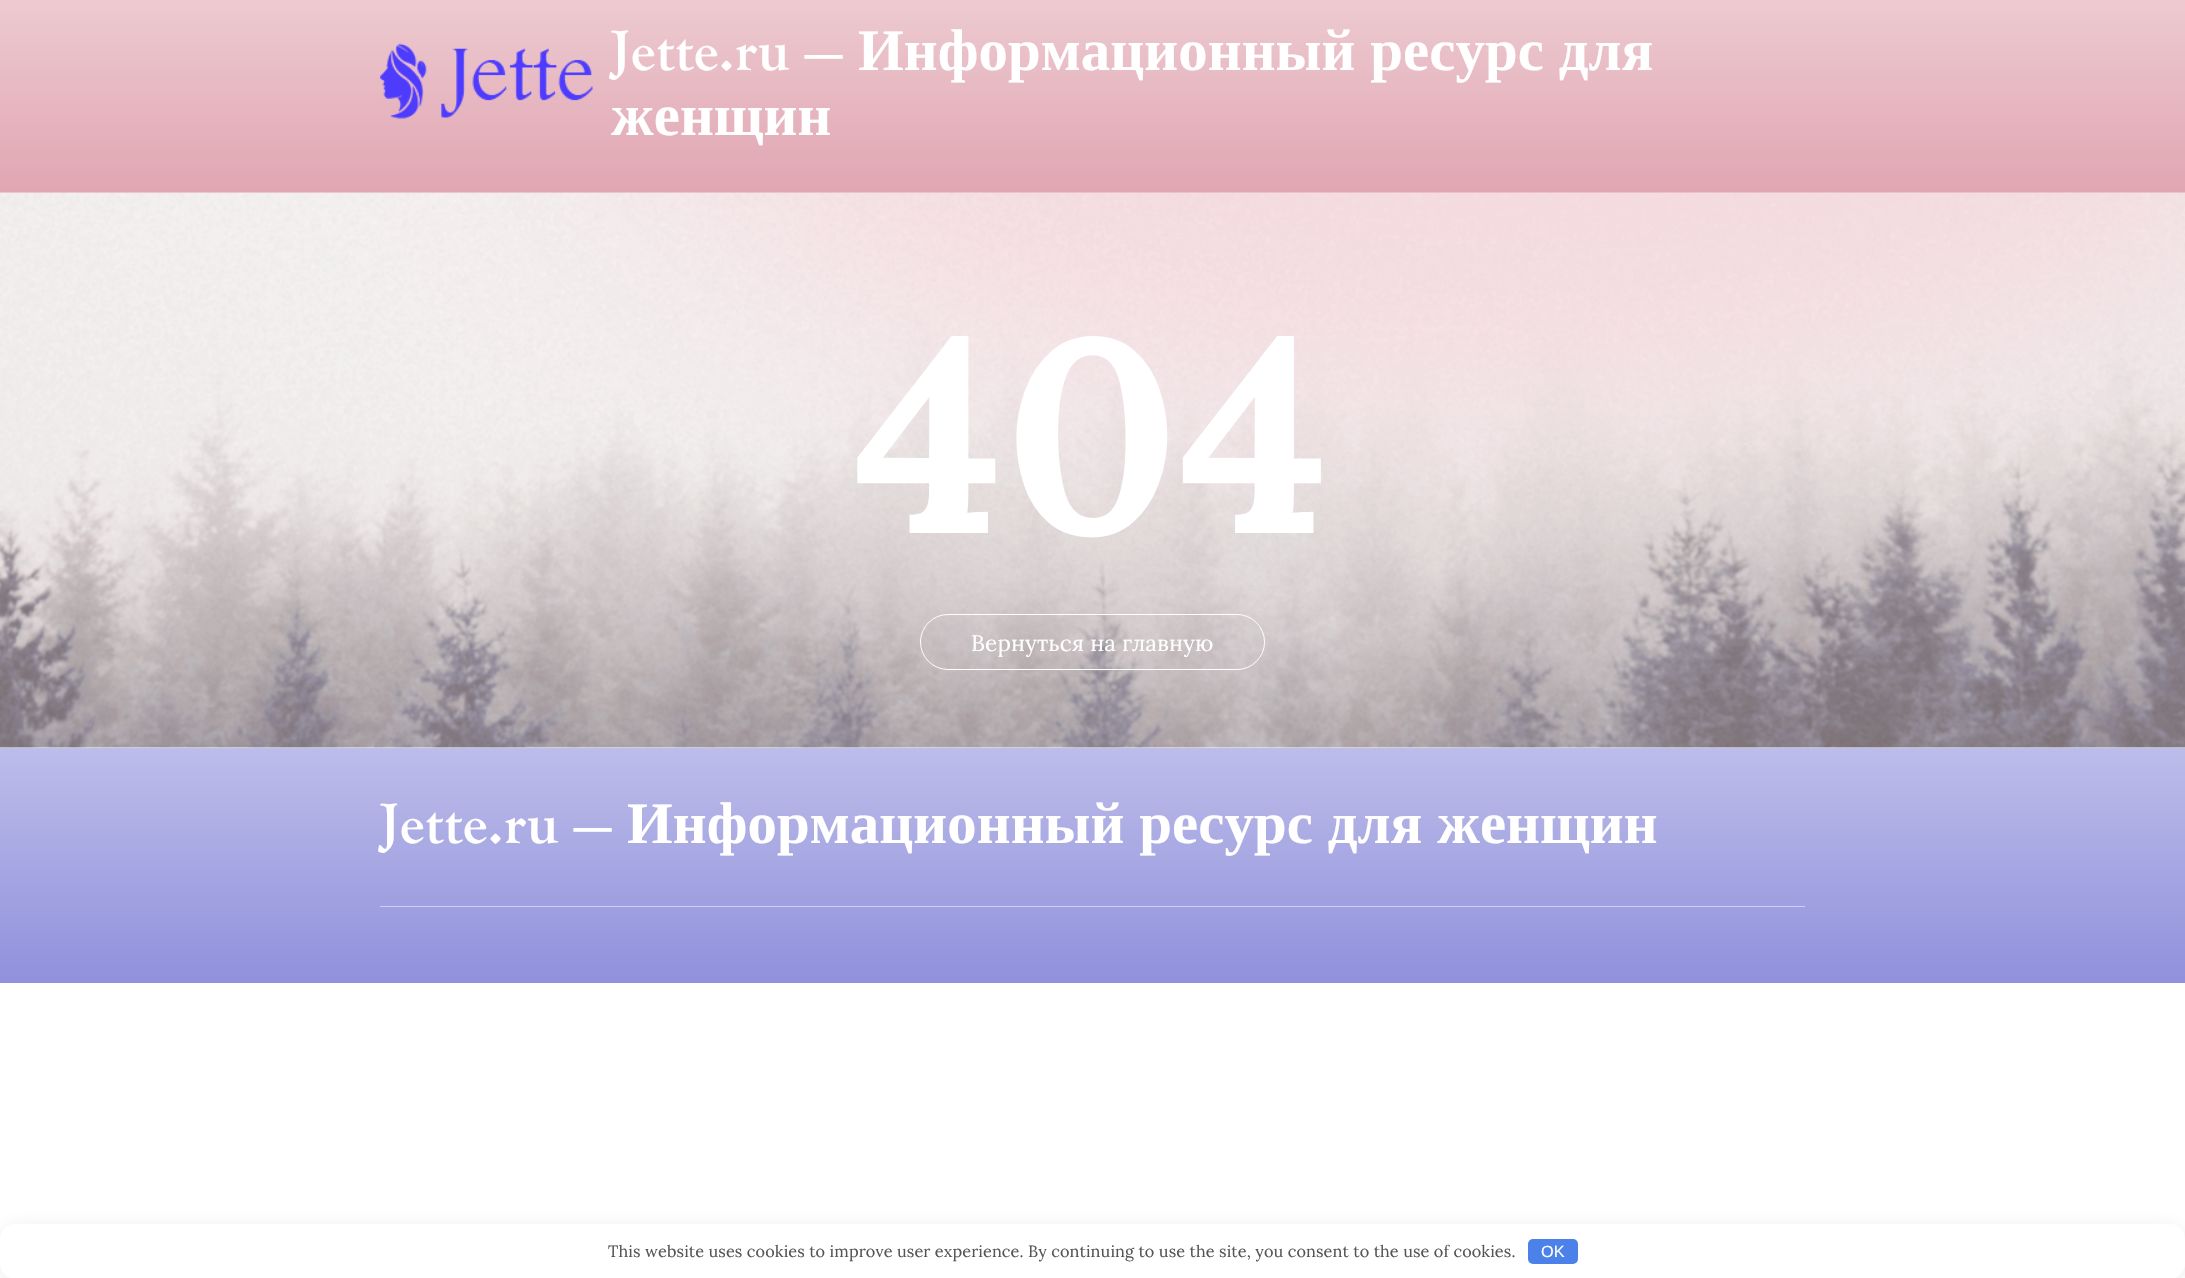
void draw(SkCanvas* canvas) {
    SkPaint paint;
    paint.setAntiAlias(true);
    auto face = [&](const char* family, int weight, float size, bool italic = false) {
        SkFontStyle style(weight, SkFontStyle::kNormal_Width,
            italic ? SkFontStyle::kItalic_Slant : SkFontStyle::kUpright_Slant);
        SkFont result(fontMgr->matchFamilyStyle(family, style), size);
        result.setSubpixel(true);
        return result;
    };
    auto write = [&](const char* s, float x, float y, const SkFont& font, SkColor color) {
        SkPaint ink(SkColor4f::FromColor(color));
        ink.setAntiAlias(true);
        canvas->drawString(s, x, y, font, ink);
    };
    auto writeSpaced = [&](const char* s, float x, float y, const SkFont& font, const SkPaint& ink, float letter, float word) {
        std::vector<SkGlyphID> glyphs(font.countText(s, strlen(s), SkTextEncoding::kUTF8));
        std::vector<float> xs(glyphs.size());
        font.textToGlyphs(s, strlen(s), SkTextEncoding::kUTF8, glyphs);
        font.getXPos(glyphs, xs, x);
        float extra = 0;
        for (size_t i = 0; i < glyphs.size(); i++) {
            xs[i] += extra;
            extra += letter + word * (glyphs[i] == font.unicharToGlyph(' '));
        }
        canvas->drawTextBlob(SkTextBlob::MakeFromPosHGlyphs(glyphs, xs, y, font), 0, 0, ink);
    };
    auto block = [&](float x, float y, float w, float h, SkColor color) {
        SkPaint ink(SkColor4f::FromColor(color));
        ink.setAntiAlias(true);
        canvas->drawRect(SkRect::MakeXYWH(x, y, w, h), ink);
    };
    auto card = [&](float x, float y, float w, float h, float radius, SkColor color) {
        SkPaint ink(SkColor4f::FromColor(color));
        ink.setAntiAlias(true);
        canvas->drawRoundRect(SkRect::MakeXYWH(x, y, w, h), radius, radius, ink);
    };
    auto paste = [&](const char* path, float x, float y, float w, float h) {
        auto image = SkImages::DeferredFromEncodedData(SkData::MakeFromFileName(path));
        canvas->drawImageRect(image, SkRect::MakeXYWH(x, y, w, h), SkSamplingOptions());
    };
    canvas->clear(SK_ColorWHITE);
    {
        const SkColor colors[] = {SkColorSetRGB(237, 202, 209), SkColorSetRGB(225, 166, 178)};
        const float stops[] = {0, 1};
        const SkPoint ends[] = {{1093, 0}, {1093, 191}};
        paint.setShader(SkGradientShader::MakeLinear(ends, colors, stops, 2, SkTileMode::kClamp));
        paint.setAlpha(255);
    }
    canvas->drawRect(SkRect::MakeXYWH(0, 0, 2185, 191), paint);
    paste("pic2.png", 0, 192, 2185, 556);
    {
        const SkColor colors[] = {SkColorSetARGB(153, 225, 166, 178), SkColorSetRGB(225, 166, 178)};
        const float stops[] = {0, 1};
        const SkPoint ends[] = {{1093, 191}, {1093, 383}};
        paint.setShader(SkGradientShader::MakeLinear(ends, colors, stops, 2, SkTileMode::kClamp));
        paint.setAlpha(255);
    }
    canvas->drawRect(SkRect::MakeXYWH(0, 192, 2185, 1), paint);
    block(0, 191, 2185, 1, SkColorSetRGB(225, 166, 178));
    paste("pic1.png", 380, 43, 213, 76);
    auto kFont1 = face("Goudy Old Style", 700, 58.75f);
    paint.setShader(nullptr);
    paint.setColor(SK_ColorWHITE);
    writeSpaced("Jette.ru —", 611, 70, kFont1, paint, 0.1f, 0);
    auto kFont2 = face("Liberation Serif", 700, 58.75f);
    writeSpaced("Информационный ресурс для", 858, 70, kFont2, paint, 0.1f, 0);
    writeSpaced("женщин", 611, 135, kFont2, paint, 0.1f, 0);
    auto kFont3 = face("Lora", 700, 275);
    writeSpaced("404", 854, 533, kFont3, paint, 0.1f, 0);
    paint.setStyle(SkPaint::kStroke_Style);
    paint.setStrokeWidth(1);
    canvas->drawRoundRect(SkRect::MakeXYWH(920.5f, 614.5f, 344, 55), 27.5f, 27.5f, paint);
    auto kFont4 = face("Lora", 400, 22.5f);
    paint.setStyle(SkPaint::kFill_Style);
    writeSpaced("Вернуться на главную", 971, 651, kFont4, paint, 0.1f, 0);
    {
        const SkColor colors[] = {SkColorSetRGB(189, 189, 234), SkColorSetRGB(144, 144, 220)};
        const float stops[] = {0, 1};
        const SkPoint ends[] = {{1093, 747}, {1093, 983}};
        paint.setShader(SkGradientShader::MakeLinear(ends, colors, stops, 2, SkTileMode::kClamp));
        paint.setAlpha(255);
    }
    canvas->drawRect(SkRect::MakeXYWH(0, 748, 2185, 235), paint);
    paint.setShader(nullptr);
    paint.setColor(SK_ColorWHITE);
    writeSpaced("Jette.ru —", 380, 843, kFont1, paint, 0.1f, 0);
    writeSpaced("Информационный ресурс для женщин", 627, 843, kFont2, paint, 0.1f, 0);
    block(380, 906, 1425, 1, SkColorSetRGB(207, 207, 240));
    paint.setColor(SkColorSetARGB(51, 41, 44, 56));
    paint.setMaskFilter(SkMaskFilter::MakeBlur(kNormal_SkBlurStyle, 12.5f));
    canvas->drawRoundRect(SkRect::MakeXYWH(6, 1234, 2173, 42), 9, 9, paint);
    paint.setMaskFilter(nullptr);
    card(0, 1224, 2185, 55, 15, SK_ColorWHITE);
    auto kFont5 = face("Lora", 400, 16.25f);
    paint.setColor(SkColorSetRGB(85, 85, 85));
    writeSpaced("This website uses cookies to improve user experience. By continuing to use the site, you consent to the use of cookies.", 608, 1257, kFont5, paint, 0.1f, 0);
    card(1528, 1239, 50, 25, 5, SkColorSetRGB(75, 129, 232));
    auto kFont6 = face("Liberation Sans", 400, 16.25f);
    write("OK", 1541, 1257, kFont6, SK_ColorWHITE);
}
